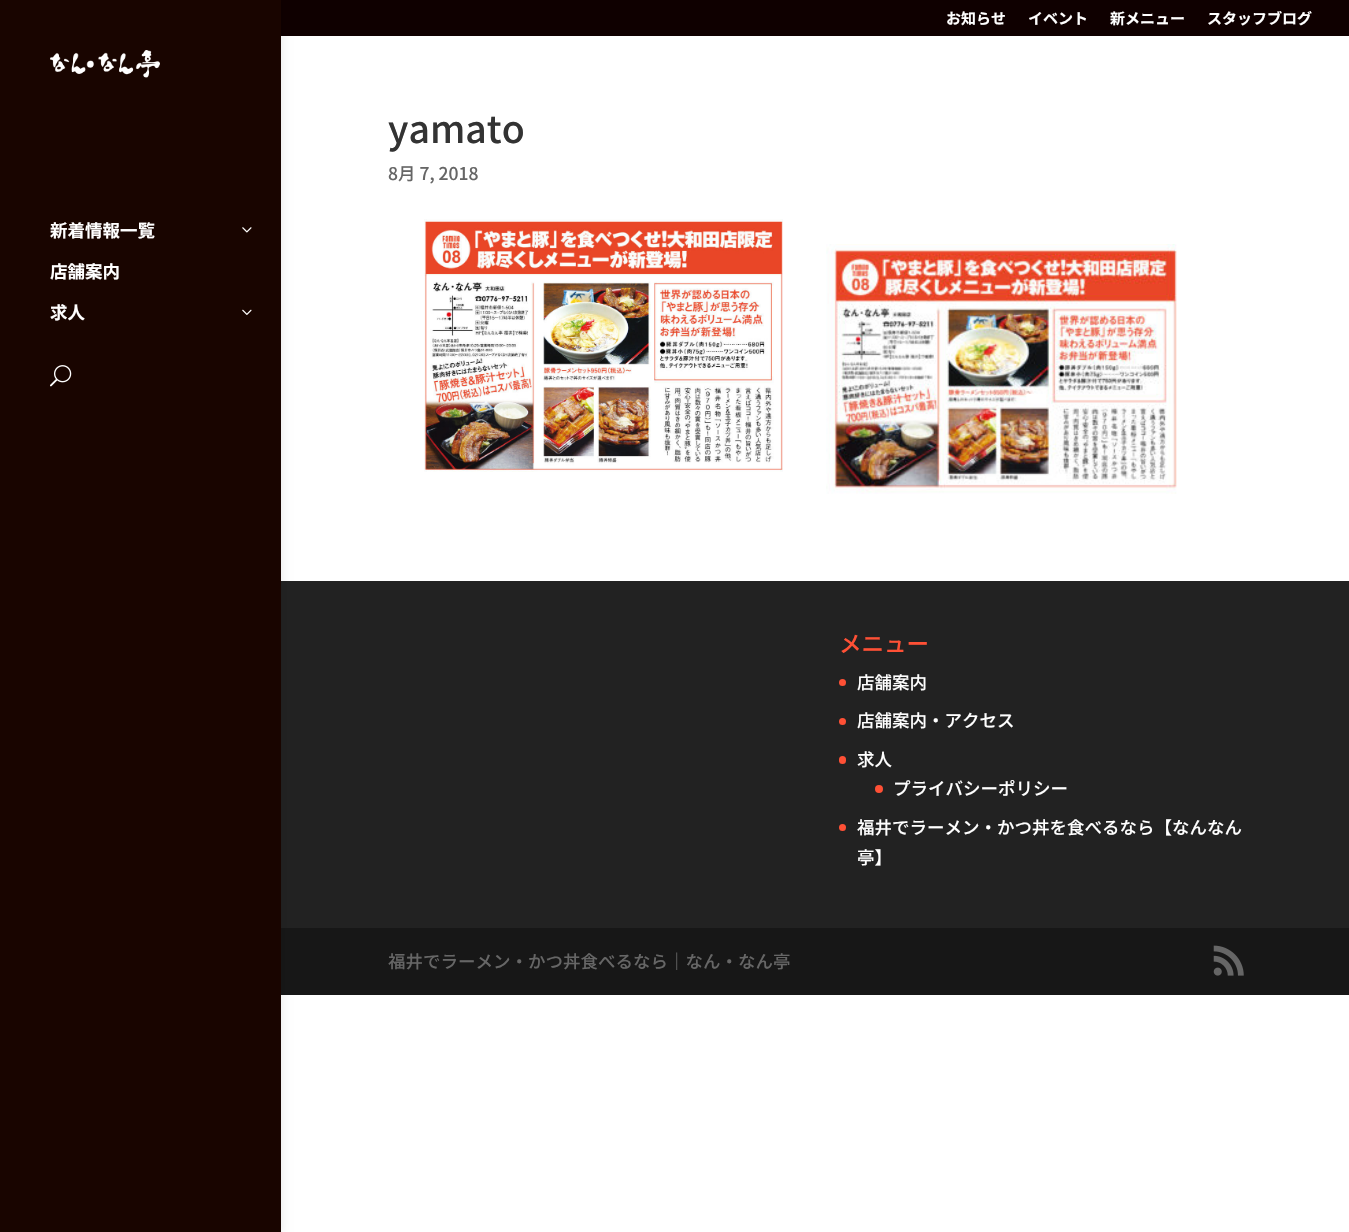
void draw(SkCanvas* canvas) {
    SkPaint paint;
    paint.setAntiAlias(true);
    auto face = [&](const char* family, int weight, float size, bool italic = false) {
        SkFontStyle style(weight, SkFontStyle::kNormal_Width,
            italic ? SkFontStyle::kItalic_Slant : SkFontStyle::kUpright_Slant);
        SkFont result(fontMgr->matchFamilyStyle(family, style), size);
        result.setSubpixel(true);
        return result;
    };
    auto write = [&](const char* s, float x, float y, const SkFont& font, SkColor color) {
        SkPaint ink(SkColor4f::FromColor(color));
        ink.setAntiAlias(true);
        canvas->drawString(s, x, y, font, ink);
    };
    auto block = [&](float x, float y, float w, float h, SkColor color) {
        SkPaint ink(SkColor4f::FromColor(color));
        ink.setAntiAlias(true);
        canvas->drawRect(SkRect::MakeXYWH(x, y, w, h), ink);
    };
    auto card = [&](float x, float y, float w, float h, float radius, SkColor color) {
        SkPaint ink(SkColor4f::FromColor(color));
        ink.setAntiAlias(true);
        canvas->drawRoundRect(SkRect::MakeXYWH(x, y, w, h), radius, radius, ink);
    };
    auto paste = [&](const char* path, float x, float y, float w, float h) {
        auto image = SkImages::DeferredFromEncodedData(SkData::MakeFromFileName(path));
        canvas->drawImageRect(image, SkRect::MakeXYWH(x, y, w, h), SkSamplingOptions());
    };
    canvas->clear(SK_ColorWHITE);
    block(281, 0, 1068, 36, SkColorSetRGB(15, 0, 0));
    auto kFont1 = face("Noto Sans JP", 700, 15);
    write("お知らせ", 946, 24, kFont1, SK_ColorWHITE);
    write("イベント", 1028, 24, kFont1, SK_ColorWHITE);
    write("新メニュー", 1110, 24, kFont1, SK_ColorWHITE);
    write("スタッフブログ", 1207, 24, kFont1, SK_ColorWHITE);
    block(281, 581, 1068, 347, SkColorSetRGB(34, 34, 34));
    block(281, 928, 1068, 67, SkColorSetRGB(23, 23, 23));
    paint.setColor(SkColorSetARGB(26, 0, 0, 0));
    paint.setMaskFilter(SkMaskFilter::MakeBlur(kNormal_SkBlurStyle, 4.5f));
    canvas->drawRect(SkRect::MakeXYWH(0, 0, 281, 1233), paint);
    paint.setMaskFilter(nullptr);
    block(0, 0, 281, 1232, SkColorSetRGB(25, 5, 0));
    paste("pic1.png", 50, 50, 110, 28);
    auto kFont2 = face("Noto Sans JP", 700, 17.5f);
    write("新着情報一覧", 50, 237, kFont2, SK_ColorWHITE);
    paste("pic2.png", 242, 227, 10, 6);
    write("店舗案内", 50, 278, kFont2, SK_ColorWHITE);
    write("求人", 50, 319, kFont2, SK_ColorWHITE);
    paste("pic3.png", 242, 309, 10, 6);
    paste("pic4.png", 50, 365, 22, 22);
    auto kFont3 = face("Noto Sans JP", 500, 37.5f);
    write("yamato", 388, 143, kFont3, SkColorSetRGB(51, 51, 51));
    auto kFont4 = face("Noto Sans JP", 500, 17.5f);
    write("8月 7, 2018", 388, 180, kFont4, SkColorSetRGB(102, 102, 102));
    paste("pic5.png", 424, 219, 359, 253);
    paste("pic6.png", 826, 244, 351, 250);
    auto kFont5 = face("Noto Sans JP", 500, 22.5f);
    write("メニュー", 839, 652, kFont5, SkColorSetRGB(255, 80, 53));
    paint.setColor(SkColorSetRGB(255, 80, 53));
    canvas->drawCircle(842.5f, 682.5f, 3.5f, paint);
    write("店舗案内", 857, 689, kFont4, SK_ColorWHITE);
    canvas->drawCircle(842.5f, 721.5f, 3.5f, paint);
    write("店舗案内・アクセス", 857, 727, kFont4, SK_ColorWHITE);
    card(839, 756, 7, 8, 3.5f, SkColorSetRGB(255, 80, 53));
    write("求人", 857, 766, kFont4, SK_ColorWHITE);
    canvas->drawCircle(879, 789, 4, paint);
    write("プライバシーポリシー", 893, 795, kFont4, SK_ColorWHITE);
    canvas->drawCircle(842.5f, 827.5f, 3.5f, paint);
    write("福井でラーメン・かつ丼を食べるなら【なんなん", 857, 834, kFont4, SK_ColorWHITE);
    write("亭】", 857, 864, kFont4, SK_ColorWHITE);
    write("福井でラーメン・かつ丼食べるなら｜なん・なん亭", 388, 968, kFont4, SkColorSetRGB(102, 102, 102));
    paste("pic7.png", 1213, 945, 31, 31);
}
